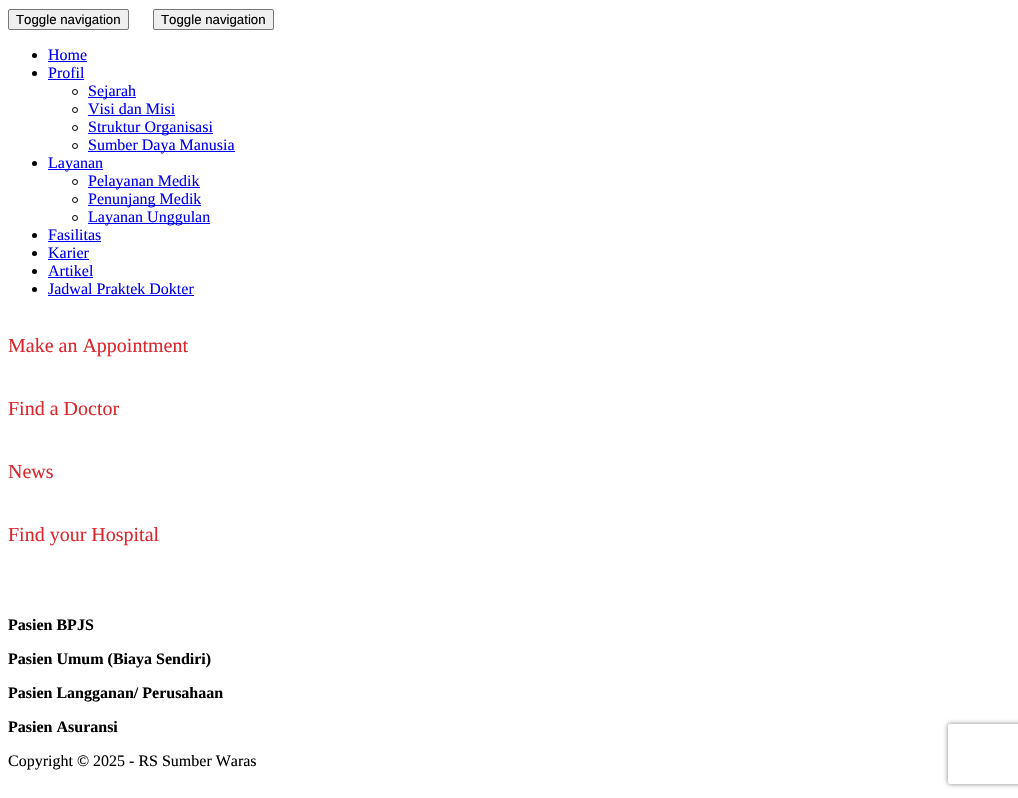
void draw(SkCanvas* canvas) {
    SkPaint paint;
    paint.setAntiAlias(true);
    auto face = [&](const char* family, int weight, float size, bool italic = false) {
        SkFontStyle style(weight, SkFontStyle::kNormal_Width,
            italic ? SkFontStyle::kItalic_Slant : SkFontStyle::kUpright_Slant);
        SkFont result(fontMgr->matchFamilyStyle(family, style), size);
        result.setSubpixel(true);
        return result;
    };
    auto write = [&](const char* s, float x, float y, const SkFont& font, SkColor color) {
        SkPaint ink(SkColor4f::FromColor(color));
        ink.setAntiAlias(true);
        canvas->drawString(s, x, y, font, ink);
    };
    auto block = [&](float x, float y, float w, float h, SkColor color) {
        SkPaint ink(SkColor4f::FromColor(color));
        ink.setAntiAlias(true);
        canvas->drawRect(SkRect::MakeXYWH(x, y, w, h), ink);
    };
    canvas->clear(SK_ColorWHITE);
    paint.setColor(SkColorSetRGB(239, 239, 239));
    canvas->drawRoundRect(SkRect::MakeXYWH(8.5f, 9.5f, 120, 20), 1.5f, 1.5f, paint);
    paint.setStyle(SkPaint::kStroke_Style);
    paint.setStrokeWidth(1);
    paint.setColor(SkColorSetRGB(118, 118, 118));
    canvas->drawRoundRect(SkRect::MakeXYWH(8.5f, 9.5f, 120, 20), 1.5f, 1.5f, paint);
    auto kFont1 = face("Liberation Sans", 400, 13.25f);
    write("Toggle navigation", 16, 24, kFont1, SK_ColorBLACK);
    paint.setStyle(SkPaint::kFill_Style);
    paint.setColor(SkColorSetRGB(239, 239, 239));
    canvas->drawRoundRect(SkRect::MakeXYWH(153.5f, 9.5f, 120, 20), 1.5f, 1.5f, paint);
    paint.setStyle(SkPaint::kStroke_Style);
    paint.setColor(SkColorSetRGB(118, 118, 118));
    canvas->drawRoundRect(SkRect::MakeXYWH(153.5f, 9.5f, 120, 20), 1.5f, 1.5f, paint);
    write("Toggle navigation", 161, 24, kFont1, SK_ColorBLACK);
    paint.setStyle(SkPaint::kFill_Style);
    paint.setColor(SK_ColorBLACK);
    canvas->drawCircle(34.5f, 55.5f, 2.5f, paint);
    auto kFont2 = face("Liberation Serif", 400, 16);
    write("Home", 48, 60, kFont2, SkColorSetRGB(0, 0, 238));
    block(48, 61, 39, 1, SkColorSetRGB(0, 0, 238));
    canvas->drawCircle(34.5f, 73.5f, 2.5f, paint);
    write("Profil", 48, 78, kFont2, SkColorSetRGB(0, 0, 238));
    block(48, 79, 36, 1, SkColorSetRGB(0, 0, 238));
    paint.setStyle(SkPaint::kStroke_Style);
    canvas->drawCircle(75, 92, 2.5f, paint);
    block(88, 97, 48, 1, SkColorSetRGB(0, 0, 238));
    write("Sejarah", 88, 96, kFont2, SkColorSetRGB(0, 0, 238));
    canvas->drawCircle(75, 110, 2.5f, paint);
    write("Visi dan Misi", 88, 114, kFont2, SkColorSetRGB(0, 0, 238));
    block(88, 115, 87, 1, SkColorSetRGB(0, 0, 238));
    canvas->drawCircle(75, 128, 2.5f, paint);
    block(88, 133, 125, 1, SkColorSetRGB(0, 0, 238));
    write("Struktur Organisasi", 88, 132, kFont2, SkColorSetRGB(0, 0, 238));
    canvas->drawCircle(75, 146, 2.5f, paint);
    block(88, 151, 147, 1, SkColorSetRGB(0, 0, 238));
    write("Sumber Daya Manusia", 88, 150, kFont2, SkColorSetRGB(0, 0, 238));
    paint.setStyle(SkPaint::kFill_Style);
    canvas->drawCircle(34.5f, 163.5f, 2.5f, paint);
    block(48, 169, 55, 1, SkColorSetRGB(0, 0, 238));
    write("Layanan", 48, 168, kFont2, SkColorSetRGB(0, 0, 238));
    paint.setStyle(SkPaint::kStroke_Style);
    canvas->drawCircle(75, 182, 2.5f, paint);
    block(88, 187, 112, 1, SkColorSetRGB(0, 0, 238));
    write("Pelayanan Medik", 88, 186, kFont2, SkColorSetRGB(0, 0, 238));
    canvas->drawCircle(75, 200, 2.5f, paint);
    block(88, 205, 113, 1, SkColorSetRGB(0, 0, 238));
    write("Penunjang Medik", 88, 204, kFont2, SkColorSetRGB(0, 0, 238));
    canvas->drawCircle(75, 218, 2.5f, paint);
    block(88, 223, 122, 1, SkColorSetRGB(0, 0, 238));
    write("Layanan Unggulan", 88, 222, kFont2, SkColorSetRGB(0, 0, 238));
    paint.setStyle(SkPaint::kFill_Style);
    canvas->drawCircle(34.5f, 235.5f, 2.5f, paint);
    write("Fasilitas", 48, 240, kFont2, SkColorSetRGB(0, 0, 238));
    block(48, 241, 53, 1, SkColorSetRGB(0, 0, 238));
    canvas->drawCircle(34.5f, 253.5f, 2.5f, paint);
    write("Karier", 48, 258, kFont2, SkColorSetRGB(0, 0, 238));
    block(48, 259, 41, 1, SkColorSetRGB(0, 0, 238));
    canvas->drawCircle(34.5f, 271.5f, 2.5f, paint);
    write("Artikel", 48, 276, kFont2, SkColorSetRGB(0, 0, 238));
    block(48, 277, 45, 1, SkColorSetRGB(0, 0, 238));
    canvas->drawCircle(34.5f, 289.5f, 2.5f, paint);
    write("Jadwal Praktek Dokter", 48, 294, kFont2, SkColorSetRGB(0, 0, 238));
    block(48, 295, 146, 1, SkColorSetRGB(0, 0, 238));
    auto kFont3 = face("Liberation Serif", 400, 20);
    write("Make an Appointment", 8, 352, kFont3, SkColorSetRGB(219, 39, 45));
    write("Find a Doctor", 8, 415, kFont3, SkColorSetRGB(219, 39, 45));
    write("News", 8, 478, kFont3, SkColorSetRGB(219, 39, 45));
    write("Find your Hospital", 8, 541, kFont3, SkColorSetRGB(219, 39, 45));
    auto kFont4 = face("Liberation Serif", 700, 16);
    write("Pasien BPJS", 8, 630, kFont4, SK_ColorBLACK);
    write("Pasien Umum (Biaya Sendiri)", 8, 664, kFont4, SK_ColorBLACK);
    write("Pasien Langganan/ Perusahaan", 8, 698, kFont4, SK_ColorBLACK);
    write("Pasien Asuransi", 8, 732, kFont4, SK_ColorBLACK);
    write("Copyright © 2025 - RS Sumber Waras", 8, 766, kFont2, SK_ColorBLACK);
    canvas->save();
    canvas->clipPath(SkPathBuilder(SkPathFillType::kEvenOdd).moveTo(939, 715).lineTo(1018, 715).lineTo(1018, 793).lineTo(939, 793).close().moveTo(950, 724).lineTo(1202, 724).cubicTo(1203, 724, 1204, 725, 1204, 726).lineTo(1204, 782).cubicTo(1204, 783, 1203, 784, 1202, 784).lineTo(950, 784).cubicTo(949, 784, 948, 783, 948, 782).lineTo(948, 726).cubicTo(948, 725, 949, 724, 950, 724).close().detach(), true);
    paint.setColor(SkColorSetRGB(128, 128, 128));
    paint.setMaskFilter(SkMaskFilter::MakeBlur(kNormal_SkBlurStyle, 2.5f));
    canvas->drawRoundRect(SkRect::MakeXYWH(948, 724, 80, 60), 2, 2, paint);
    paint.setMaskFilter(nullptr);
    canvas->restore();
}
